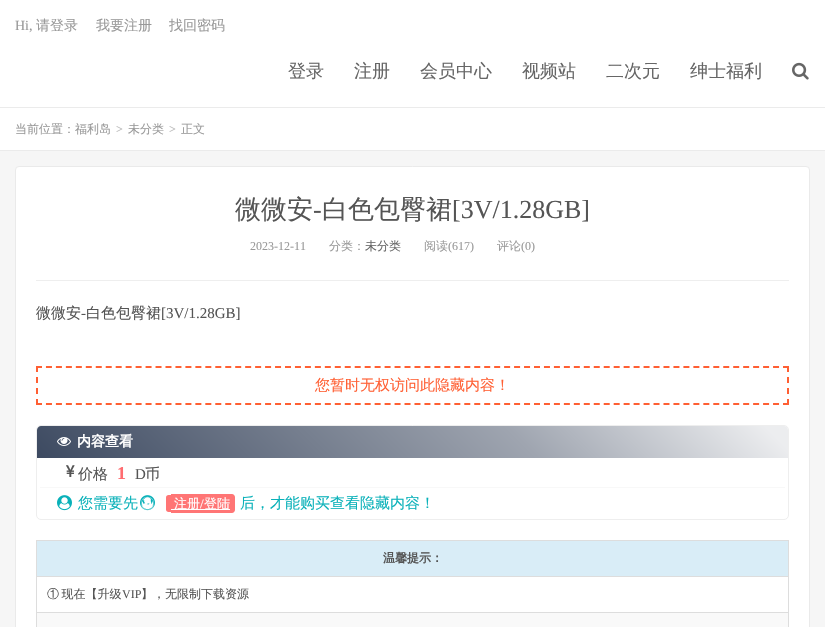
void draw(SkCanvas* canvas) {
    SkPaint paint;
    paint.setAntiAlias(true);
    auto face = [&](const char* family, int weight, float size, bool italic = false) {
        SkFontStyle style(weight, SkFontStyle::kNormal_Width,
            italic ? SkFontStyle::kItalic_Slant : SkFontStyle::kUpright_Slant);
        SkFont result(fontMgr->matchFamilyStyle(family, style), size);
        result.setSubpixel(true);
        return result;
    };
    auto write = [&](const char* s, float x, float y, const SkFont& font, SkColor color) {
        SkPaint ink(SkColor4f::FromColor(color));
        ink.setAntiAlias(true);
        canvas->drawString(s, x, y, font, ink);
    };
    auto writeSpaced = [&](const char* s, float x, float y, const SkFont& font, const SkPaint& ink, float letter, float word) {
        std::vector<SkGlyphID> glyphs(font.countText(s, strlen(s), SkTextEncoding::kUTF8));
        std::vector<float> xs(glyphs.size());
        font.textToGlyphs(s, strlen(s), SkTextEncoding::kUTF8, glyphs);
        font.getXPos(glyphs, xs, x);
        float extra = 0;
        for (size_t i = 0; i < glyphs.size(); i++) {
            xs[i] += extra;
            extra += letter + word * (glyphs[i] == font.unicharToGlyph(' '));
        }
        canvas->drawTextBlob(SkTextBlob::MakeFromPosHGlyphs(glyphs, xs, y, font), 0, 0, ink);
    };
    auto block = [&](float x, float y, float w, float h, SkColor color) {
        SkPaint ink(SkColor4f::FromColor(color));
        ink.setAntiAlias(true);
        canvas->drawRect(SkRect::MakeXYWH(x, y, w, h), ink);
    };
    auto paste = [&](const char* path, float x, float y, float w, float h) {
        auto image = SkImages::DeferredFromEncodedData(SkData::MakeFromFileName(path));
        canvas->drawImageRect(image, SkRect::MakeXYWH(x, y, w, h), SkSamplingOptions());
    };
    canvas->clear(SkColorSetRGB(246, 246, 246));
    block(0, 0, 825, 107, SK_ColorWHITE);
    block(0, 107, 825, 1, SkColorSetRGB(235, 235, 235));
    auto kFont1 = face("Liberation Serif", 400, 14);
    write("Hi,", 15, 30, kFont1, SkColorSetRGB(153, 153, 153));
    auto kFont2 = face("WenQuanYi Zen Hei", 500, 14);
    write("请登录", 36, 30, kFont2, SkColorSetRGB(153, 153, 153));
    write("我要注册", 96, 30, kFont2, SkColorSetRGB(153, 153, 153));
    write("找回密码", 169, 30, kFont2, SkColorSetRGB(153, 153, 153));
    auto kFont3 = face("WenQuanYi Zen Hei", 500, 18);
    write("登录", 288, 77, kFont3, SkColorSetRGB(102, 102, 102));
    write("注册", 354, 77, kFont3, SkColorSetRGB(102, 102, 102));
    write("会员中心", 420, 77, kFont3, SkColorSetRGB(102, 102, 102));
    write("视频站", 522, 77, kFont3, SkColorSetRGB(102, 102, 102));
    write("二次元", 606, 77, kFont3, SkColorSetRGB(102, 102, 102));
    write("绅士福利", 690, 77, kFont3, SkColorSetRGB(102, 102, 102));
    paste("pic1.png", 792, 62, 17, 18);
    block(0, 108, 825, 42, SK_ColorWHITE);
    block(0, 150, 825, 1, SkColorSetRGB(235, 235, 235));
    auto kFont4 = face("WenQuanYi Zen Hei", 500, 12);
    write("当前位置：福利岛", 15, 133, kFont4, SkColorSetRGB(153, 153, 153));
    auto kFont5 = face("Liberation Serif", 700, 12);
    write(">", 116, 133, kFont5, SkColorSetRGB(187, 187, 187));
    write("未分类", 128, 133, kFont4, SkColorSetRGB(153, 153, 153));
    write(">", 169, 133, kFont5, SkColorSetRGB(187, 187, 187));
    write("正文", 181, 133, kFont4, SkColorSetRGB(153, 153, 153));
    paint.setColor(SK_ColorWHITE);
    canvas->drawRoundRect(SkRect::MakeXYWH(15.5f, 166.5f, 794, 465), 3.5f, 3.5f, paint);
    paint.setStyle(SkPaint::kStroke_Style);
    paint.setStrokeWidth(1);
    paint.setColor(SkColorSetRGB(234, 234, 234));
    canvas->drawRoundRect(SkRect::MakeXYWH(15.5f, 166.5f, 794, 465), 3.5f, 3.5f, paint);
    block(36, 280, 753, 1, SkColorSetRGB(238, 238, 238));
    auto kFont6 = face("WenQuanYi Zen Hei", 500, 26);
    write("微微安", 235, 218, kFont6, SkColorSetRGB(85, 85, 85));
    auto kFont7 = face("Liberation Serif", 400, 26);
    write("-", 313, 218, kFont7, SkColorSetRGB(85, 85, 85));
    write("白色包臀裙", 322, 218, kFont6, SkColorSetRGB(85, 85, 85));
    write("[3V/1.28GB]", 452, 218, kFont7, SkColorSetRGB(85, 85, 85));
    auto kFont8 = face("Liberation Serif", 400, 12);
    write("2023-12-11", 250, 250, kFont8, SkColorSetRGB(153, 153, 153));
    write("分类：", 329, 250, kFont4, SkColorSetRGB(153, 153, 153));
    write("未分类", 365, 250, kFont4, SkColorSetRGB(102, 102, 102));
    write("阅读", 424, 250, kFont4, SkColorSetRGB(153, 153, 153));
    write("(617)", 448, 250, kFont8, SkColorSetRGB(153, 153, 153));
    write("评论", 497, 250, kFont4, SkColorSetRGB(153, 153, 153));
    write("(0)", 521, 250, kFont8, SkColorSetRGB(153, 153, 153));
    auto kFont9 = face("WenQuanYi Zen Hei", 500, 15);
    write("微微安", 36, 318, kFont9, SkColorSetRGB(85, 85, 85));
    auto kFont10 = face("Liberation Serif", 400, 15);
    write("-", 81, 318, kFont10, SkColorSetRGB(85, 85, 85));
    write("白色包臀裙", 86, 318, kFont9, SkColorSetRGB(85, 85, 85));
    write("[3V/1.28GB]", 161, 318, kFont10, SkColorSetRGB(85, 85, 85));
    paint.setStrokeWidth(2);
    paint.setColor(SkColorSetRGB(255, 95, 51));
    paint.setPathEffect(SkDashPathEffect::Make({{6, 3.96f}}, 0));
    canvas->drawPath(SkPathBuilder().moveTo(36, 367).lineTo(789, 367).detach(), paint);
    paint.setPathEffect(nullptr);
    paint.setPathEffect(SkDashPathEffect::Make({{6, 5}}, 0));
    canvas->drawPath(SkPathBuilder().moveTo(788, 366).lineTo(788, 405).detach(), paint);
    paint.setPathEffect(nullptr);
    paint.setPathEffect(SkDashPathEffect::Make({{6, 3.96f}}, 0));
    canvas->drawPath(SkPathBuilder().moveTo(36, 404).lineTo(789, 404).detach(), paint);
    paint.setPathEffect(nullptr);
    paint.setPathEffect(SkDashPathEffect::Make({{6, 5}}, 0));
    canvas->drawPath(SkPathBuilder().moveTo(37, 366).lineTo(37, 405).detach(), paint);
    paint.setPathEffect(nullptr);
    write("您暂时无权访问此隐藏内容！", 315, 390, kFont9, SkColorSetRGB(255, 95, 51));
    paint.setStrokeWidth(1);
    paint.setColor(SkColorSetRGB(238, 238, 238));
    canvas->drawRoundRect(SkRect::MakeXYWH(36.5f, 425.5f, 752, 94), 4.5f, 4.5f, paint);
    paint.setStyle(SkPaint::kFill_Style);
    {
        const SkColor colors[] = {SkColorSetRGB(62, 75, 98), SkColorSetRGB(159, 165, 176), SkColorSetRGB(236, 237, 239)};
        const float stops[] = {0.01f, 0.64f, 0.97f};
        const SkPoint ends[] = {{217, 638}, {608, 246}};
        paint.setShader(SkGradientShader::MakeLinear(ends, colors, stops, 3, SkTileMode::kClamp));
        paint.setAlpha(255);
    }
    canvas->drawPath(SkPathBuilder().moveTo(41, 426).lineTo(784, 426).cubicTo(786, 426, 788, 428, 788, 430).lineTo(788, 458).lineTo(37, 458).lineTo(37, 430).cubicTo(37, 428, 39, 426, 41, 426).close().detach(), paint);
    paste("pic2.png", 57, 437, 14, 9);
    auto kFont11 = face("WenQuanYi Zen Hei", 700, 14);
    write("内容查看", 77, 446, kFont11, SK_ColorWHITE);
    block(40, 487, 745, 1, SkColorSetRGB(248, 248, 248));
    paste("pic3.png", 66, 465, 9, 12);
    write("价格", 78, 479, kFont9, SkColorSetRGB(85, 85, 85));
    auto kFont12 = face("Liberation Serif", 700, 18);
    write("1", 117, 479, kFont12, SkColorSetRGB(255, 108, 112));
    write("D", 135, 479, kFont10, SkColorSetRGB(85, 85, 85));
    write("币", 145, 479, kFont9, SkColorSetRGB(85, 85, 85));
    paste("pic4.png", 57, 495, 15, 16);
    write("您需要先", 78, 508, kFont9, SkColorSetRGB(9, 177, 185));
    paste("pic4.png", 140, 495, 15, 16);
    paint.setShader(nullptr);
    paint.setColor(SkColorSetRGB(255, 117, 117));
    canvas->drawPath(SkPathBuilder().moveTo(168.5f, 495).lineTo(171, 495).lineTo(171, 512).lineTo(168.5f, 512).cubicTo(167, 512, 166, 511, 166, 509.5f).lineTo(166, 497.5f).cubicTo(166, 496, 167, 495, 168.5f, 495).close().detach(), paint);
    canvas->drawPath(SkPathBuilder().moveTo(171, 494).lineTo(232, 494).cubicTo(233.5f, 494, 235, 495.5f, 235, 497).lineTo(235, 510).cubicTo(235, 511.5f, 233.5f, 513, 232, 513).lineTo(171, 513).close().detach(), paint);
    paste("pic5.png", 141, 496, 13, 14);
    block(171, 509, 59, 1, SK_ColorWHITE);
    auto kFont13 = face("WenQuanYi Zen Hei", 500, 13);
    write("注册 登陆", 174, 508, kFont13, SK_ColorWHITE);
    auto kFont14 = face("Liberation Serif", 400, 13);
    write("/", 200, 508, kFont14, SK_ColorWHITE);
    write("后，才能购买查看隐藏内容！", 240, 508, kFont9, SkColorSetRGB(9, 177, 185));
    block(36, 540, 753, 1, SkColorSetRGB(221, 221, 221));
    block(36, 540, 1, 87, SkColorSetRGB(221, 221, 221));
    block(37, 541, 751, 35, SkColorSetRGB(217, 237, 247));
    block(36, 612, 753, 1, SkColorSetRGB(221, 221, 221));
    block(788, 540, 1, 87, SkColorSetRGB(221, 221, 221));
    block(36, 576, 753, 1, SkColorSetRGB(221, 221, 221));
    auto kFont15 = face("WenQuanYi Zen Hei", 700, 12);
    write("温馨提示：", 383, 562, kFont15, SkColorSetRGB(85, 85, 85));
    block(37, 613, 751, 14, SkColorSetRGB(249, 249, 249));
    paint.setColor(SkColorSetRGB(85, 85, 85));
    writeSpaced("① 现在【升级", 47, 598, kFont4, paint, 0, -1);
    write("VIP", 122, 598, kFont8, SkColorSetRGB(85, 85, 85));
    write("】，无限制下载资源", 141, 598, kFont4, SkColorSetRGB(85, 85, 85));
}
